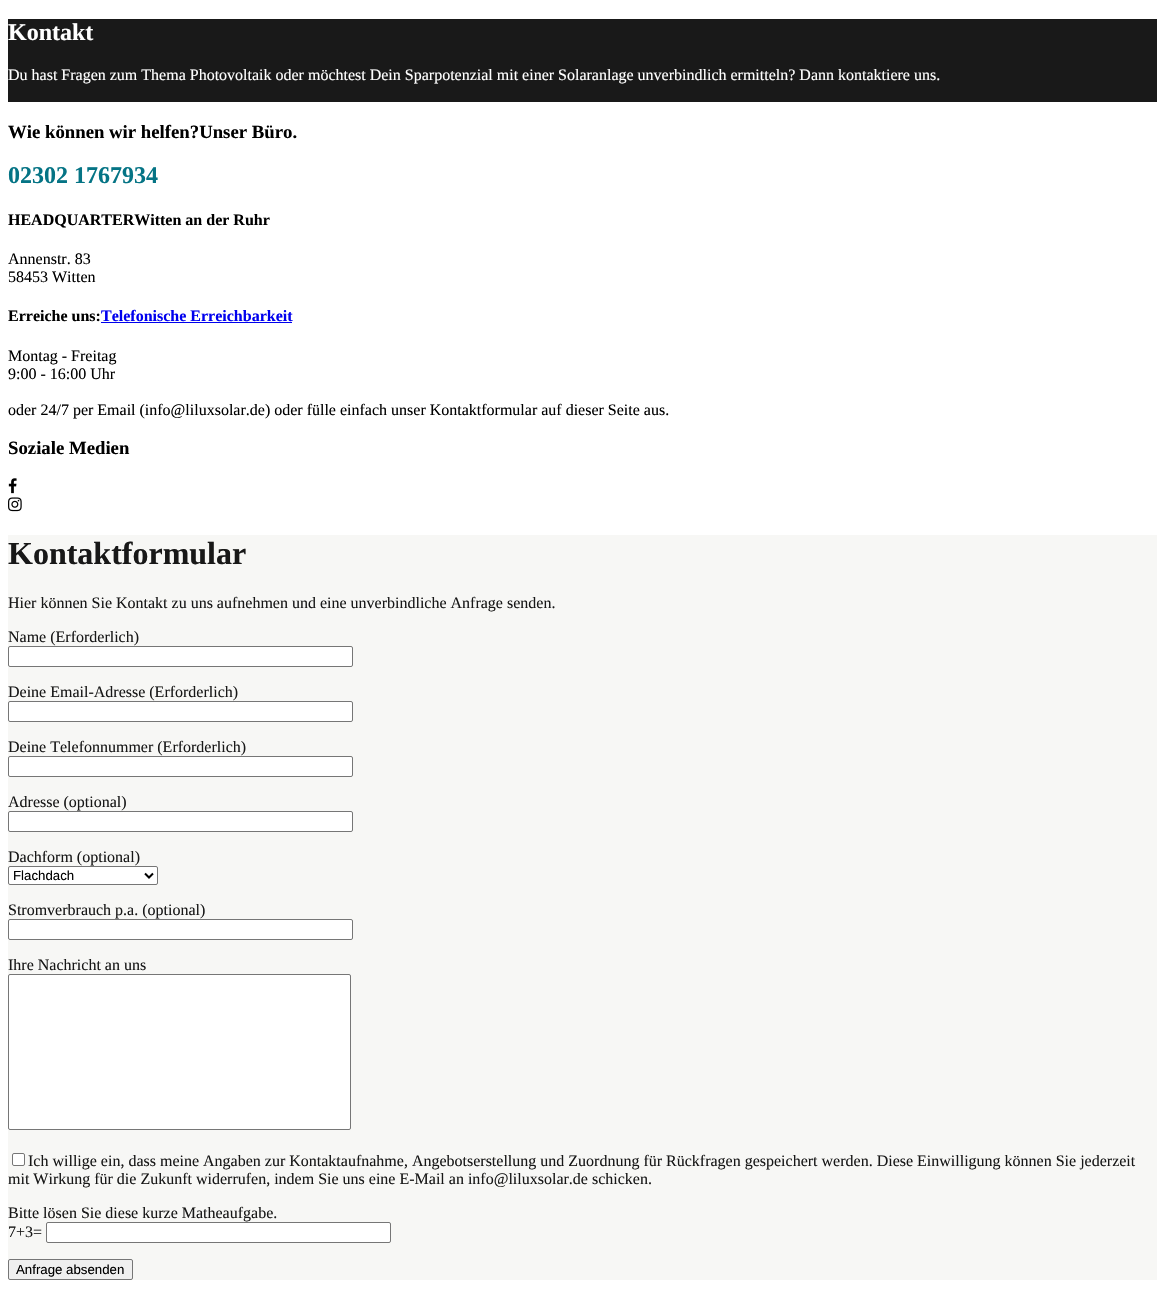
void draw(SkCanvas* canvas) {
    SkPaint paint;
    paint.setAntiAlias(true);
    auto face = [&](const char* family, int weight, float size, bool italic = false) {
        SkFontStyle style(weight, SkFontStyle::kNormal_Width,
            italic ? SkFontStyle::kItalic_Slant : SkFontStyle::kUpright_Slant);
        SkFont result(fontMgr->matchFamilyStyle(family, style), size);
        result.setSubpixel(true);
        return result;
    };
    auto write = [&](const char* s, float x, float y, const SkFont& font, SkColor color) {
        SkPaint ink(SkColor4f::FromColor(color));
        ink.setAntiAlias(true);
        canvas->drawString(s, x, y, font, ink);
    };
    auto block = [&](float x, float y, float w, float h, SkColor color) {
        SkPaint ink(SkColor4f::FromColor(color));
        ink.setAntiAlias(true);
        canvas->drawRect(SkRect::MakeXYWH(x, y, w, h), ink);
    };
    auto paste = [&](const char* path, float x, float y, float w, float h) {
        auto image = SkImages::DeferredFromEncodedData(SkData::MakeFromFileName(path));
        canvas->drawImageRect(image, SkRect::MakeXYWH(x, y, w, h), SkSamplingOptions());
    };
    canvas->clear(SK_ColorWHITE);
    block(8, 19, 1149, 83, SkColorSetRGB(25, 25, 25));
    auto kFont1 = face("Liberation Serif", 700, 24);
    write("Kontakt", 8, 40, kFont1, SK_ColorWHITE);
    auto kFont2 = face("Liberation Serif", 400, 16);
    write("Du hast Fragen zum Thema Photovoltaik oder möchtest Dein Sparpotenzial mit einer Solaranlage unverbindlich ermitteln? Dann kontaktiere uns.", 8, 80, kFont2, SK_ColorWHITE);
    auto kFont3 = face("Liberation Serif", 700, 18.75f);
    write("Wie können wir helfen?Unser Büro.", 8, 138, kFont3, SK_ColorBLACK);
    write("02302 1767934", 8, 183, kFont1, SkColorSetRGB(5, 116, 133));
    auto kFont4 = face("Liberation Serif", 700, 16);
    write("HEADQUARTERWitten an der Ruhr", 8, 225, kFont4, SK_ColorBLACK);
    write("Annenstr. 83", 8, 264, kFont2, SK_ColorBLACK);
    write("58453 Witten", 8, 282, kFont2, SK_ColorBLACK);
    write("Erreiche uns:", 8, 321, kFont4, SK_ColorBLACK);
    write("Telefonische Erreichbarkeit", 101, 321, kFont4, SkColorSetRGB(0, 0, 238));
    block(101, 322, 191, 1, SkColorSetRGB(0, 0, 238));
    write("Montag - Freitag", 8, 361, kFont2, SK_ColorBLACK);
    write("9:00 - 16:00 Uhr", 8, 379, kFont2, SK_ColorBLACK);
    write("oder 24/7 per Email (info@liluxsolar.de) oder fülle einfach unser Kontaktformular auf dieser Seite aus.", 8, 415, kFont2, SK_ColorBLACK);
    write("Soziale Medien", 8, 454, kFont3, SK_ColorBLACK);
    paste("pic1.png", 8, 478, 9, 16);
    paste("pic2.png", 8, 497, 14, 15);
    block(8, 535, 1149, 745, SkColorSetRGB(247, 247, 245));
    auto kFont5 = face("Liberation Serif", 700, 32);
    write("Kontaktformular", 8, 564, kFont5, SkColorSetRGB(24, 24, 24));
    write("Hier können Sie Kontakt zu uns aufnehmen und eine unverbindliche Anfrage senden.", 8, 608, kFont2, SkColorSetRGB(24, 24, 24));
    write("Name (Erforderlich)", 8, 642, kFont2, SkColorSetRGB(24, 24, 24));
    paint.setColor(SK_ColorWHITE);
    canvas->drawRoundRect(SkRect::MakeXYWH(8.5f, 646.5f, 344, 20), 1.5f, 1.5f, paint);
    paint.setStyle(SkPaint::kStroke_Style);
    paint.setStrokeWidth(1);
    paint.setColor(SkColorSetRGB(118, 118, 118));
    canvas->drawRoundRect(SkRect::MakeXYWH(8.5f, 646.5f, 344, 20), 1.5f, 1.5f, paint);
    write("Deine Email-Adresse (Erforderlich)", 8, 697, kFont2, SkColorSetRGB(24, 24, 24));
    paint.setStyle(SkPaint::kFill_Style);
    paint.setColor(SK_ColorWHITE);
    canvas->drawRoundRect(SkRect::MakeXYWH(8.5f, 701.5f, 344, 20), 1.5f, 1.5f, paint);
    paint.setStyle(SkPaint::kStroke_Style);
    paint.setColor(SkColorSetRGB(118, 118, 118));
    canvas->drawRoundRect(SkRect::MakeXYWH(8.5f, 701.5f, 344, 20), 1.5f, 1.5f, paint);
    write("Deine Telefonnummer (Erforderlich)", 8, 752, kFont2, SkColorSetRGB(24, 24, 24));
    paint.setStyle(SkPaint::kFill_Style);
    paint.setColor(SK_ColorWHITE);
    canvas->drawRoundRect(SkRect::MakeXYWH(8.5f, 756.5f, 344, 20), 1.5f, 1.5f, paint);
    paint.setStyle(SkPaint::kStroke_Style);
    paint.setColor(SkColorSetRGB(118, 118, 118));
    canvas->drawRoundRect(SkRect::MakeXYWH(8.5f, 756.5f, 344, 20), 1.5f, 1.5f, paint);
    write("Adresse (optional)", 8, 807, kFont2, SkColorSetRGB(24, 24, 24));
    paint.setStyle(SkPaint::kFill_Style);
    paint.setColor(SK_ColorWHITE);
    canvas->drawRoundRect(SkRect::MakeXYWH(8.5f, 811.5f, 344, 20), 1.5f, 1.5f, paint);
    paint.setStyle(SkPaint::kStroke_Style);
    paint.setColor(SkColorSetRGB(118, 118, 118));
    canvas->drawRoundRect(SkRect::MakeXYWH(8.5f, 811.5f, 344, 20), 1.5f, 1.5f, paint);
    write("Dachform (optional)", 8, 862, kFont2, SkColorSetRGB(24, 24, 24));
    paint.setStyle(SkPaint::kFill_Style);
    paint.setColor(SK_ColorWHITE);
    canvas->drawRoundRect(SkRect::MakeXYWH(8.5f, 866.5f, 149, 18), 1.5f, 1.5f, paint);
    paint.setStyle(SkPaint::kStroke_Style);
    paint.setColor(SkColorSetRGB(118, 118, 118));
    canvas->drawRoundRect(SkRect::MakeXYWH(8.5f, 866.5f, 149, 18), 1.5f, 1.5f, paint);
    paint.setStrokeWidth(2);
    paint.setColor(SK_ColorBLACK);
    canvas->drawPath(SkPathBuilder().moveTo(145, 873.5f).lineTo(149, 877.5f).lineTo(153, 873.5f).detach(), paint);
    auto kFont6 = face("Liberation Sans", 400, 13.25f);
    write("Flachdach", 13, 880, kFont6, SK_ColorBLACK);
    write("Stromverbrauch p.a. (optional)", 8, 915, kFont2, SkColorSetRGB(24, 24, 24));
    paint.setStyle(SkPaint::kFill_Style);
    paint.setColor(SK_ColorWHITE);
    canvas->drawRoundRect(SkRect::MakeXYWH(8.5f, 919.5f, 344, 20), 1.5f, 1.5f, paint);
    paint.setStyle(SkPaint::kStroke_Style);
    paint.setStrokeWidth(1);
    paint.setColor(SkColorSetRGB(118, 118, 118));
    canvas->drawRoundRect(SkRect::MakeXYWH(8.5f, 919.5f, 344, 20), 1.5f, 1.5f, paint);
    write("Ihre Nachricht an uns", 8, 970, kFont2, SkColorSetRGB(24, 24, 24));
    paint.setStyle(SkPaint::kFill_Style);
    paint.setColor(SK_ColorWHITE);
    canvas->drawRoundRect(SkRect::MakeXYWH(8.5f, 974.5f, 342, 155), 1.5f, 1.5f, paint);
    paint.setStyle(SkPaint::kStroke_Style);
    paint.setColor(SkColorSetRGB(118, 118, 118));
    canvas->drawRoundRect(SkRect::MakeXYWH(8.5f, 974.5f, 342, 155), 1.5f, 1.5f, paint);
    paint.setStyle(SkPaint::kFill_Style);
    paint.setColor(SK_ColorWHITE);
    canvas->drawRoundRect(SkRect::MakeXYWH(12.5f, 1153.5f, 12, 12), 1.5f, 1.5f, paint);
    paint.setStyle(SkPaint::kStroke_Style);
    paint.setColor(SkColorSetRGB(118, 118, 118));
    canvas->drawRoundRect(SkRect::MakeXYWH(12.5f, 1153.5f, 12, 12), 1.5f, 1.5f, paint);
    write("Ich willige ein, dass meine Angaben zur Kontaktaufnahme, Angebotserstellung und Zuordnung für Rückfragen gespeichert werden. Diese Einwilligung können Sie jederzeit", 28, 1166, kFont2, SkColorSetRGB(24, 24, 24));
    write("mit Wirkung für die Zukunft widerrufen, indem Sie uns eine E-Mail an info@liluxsolar.de schicken.", 8, 1184, kFont2, SkColorSetRGB(24, 24, 24));
    write("Bitte lösen Sie diese kurze Matheaufgabe.", 8, 1218, kFont2, SkColorSetRGB(24, 24, 24));
    write("7+3=", 8, 1237, kFont2, SkColorSetRGB(24, 24, 24));
    paint.setStyle(SkPaint::kFill_Style);
    paint.setColor(SK_ColorWHITE);
    canvas->drawRoundRect(SkRect::MakeXYWH(46.5f, 1222.5f, 344, 20), 1.5f, 1.5f, paint);
    paint.setStyle(SkPaint::kStroke_Style);
    paint.setColor(SkColorSetRGB(118, 118, 118));
    canvas->drawRoundRect(SkRect::MakeXYWH(46.5f, 1222.5f, 344, 20), 1.5f, 1.5f, paint);
    paint.setStyle(SkPaint::kFill_Style);
    paint.setColor(SkColorSetRGB(239, 239, 239));
    canvas->drawRoundRect(SkRect::MakeXYWH(8.5f, 1259.5f, 124, 20), 1.5f, 1.5f, paint);
    paint.setStyle(SkPaint::kStroke_Style);
    paint.setColor(SkColorSetRGB(118, 118, 118));
    canvas->drawRoundRect(SkRect::MakeXYWH(8.5f, 1259.5f, 124, 20), 1.5f, 1.5f, paint);
    write("Anfrage absenden", 16, 1274, kFont6, SK_ColorBLACK);
}
